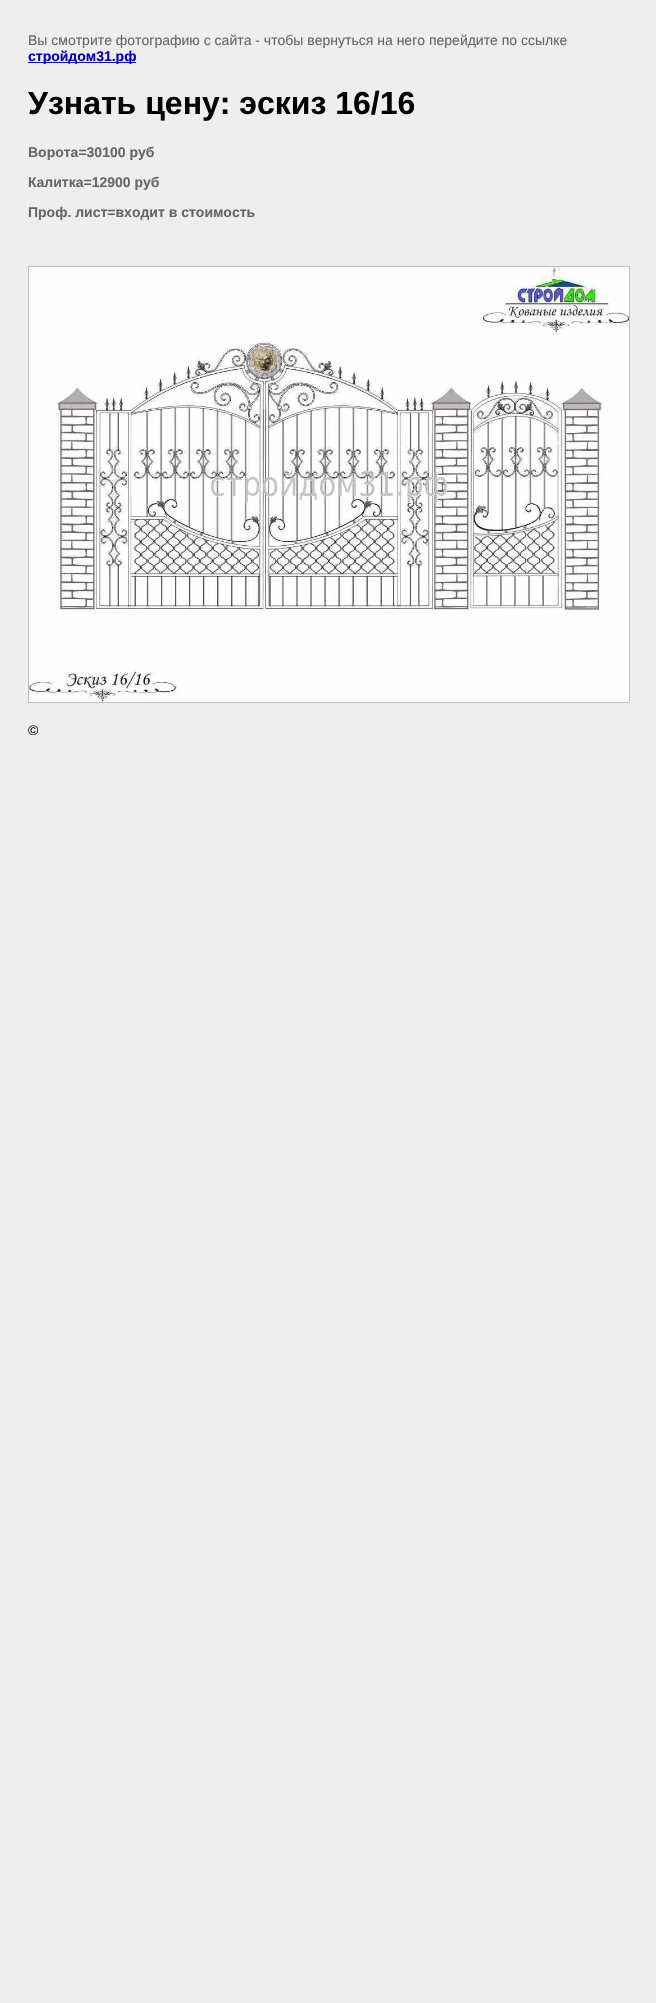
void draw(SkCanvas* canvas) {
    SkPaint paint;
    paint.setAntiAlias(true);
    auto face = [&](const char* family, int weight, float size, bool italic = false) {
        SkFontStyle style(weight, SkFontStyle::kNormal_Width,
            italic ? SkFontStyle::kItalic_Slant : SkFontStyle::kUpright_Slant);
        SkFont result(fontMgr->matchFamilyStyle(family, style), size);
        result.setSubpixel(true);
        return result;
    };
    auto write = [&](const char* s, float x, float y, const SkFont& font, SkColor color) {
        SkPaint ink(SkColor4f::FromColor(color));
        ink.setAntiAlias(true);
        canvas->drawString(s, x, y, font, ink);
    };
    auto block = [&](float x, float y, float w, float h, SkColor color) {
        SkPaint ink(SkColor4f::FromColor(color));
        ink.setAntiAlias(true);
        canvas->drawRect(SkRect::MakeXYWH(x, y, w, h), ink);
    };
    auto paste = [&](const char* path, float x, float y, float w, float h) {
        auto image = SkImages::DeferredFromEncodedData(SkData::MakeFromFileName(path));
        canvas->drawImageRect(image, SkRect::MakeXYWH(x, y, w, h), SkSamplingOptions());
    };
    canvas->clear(SkColorSetRGB(238, 238, 238));
    auto kFont1 = face("Liberation Sans", 400, 14);
    write("Вы смотрите фотографию с сайта - чтобы вернуться на него перейдите по ссылке", 28, 45, kFont1, SkColorSetRGB(102, 102, 102));
    block(28, 62, 108, 1, SkColorSetRGB(0, 0, 204));
    auto kFont2 = face("Liberation Sans", 700, 14);
    write("стройдом31.рф", 28, 61, kFont2, SkColorSetRGB(0, 0, 204));
    auto kFont3 = face("Liberation Sans", 700, 32);
    write("Узнать цену: эскиз 16/16", 28, 114, kFont3, SK_ColorBLACK);
    write("Ворота=30100 руб", 28, 157, kFont2, SkColorSetRGB(102, 102, 102));
    write("Калитка=12900 руб", 28, 187, kFont2, SkColorSetRGB(102, 102, 102));
    write("Проф. лист=входит в стоимость", 28, 217, kFont2, SkColorSetRGB(102, 102, 102));
    paint.setStyle(SkPaint::kStroke_Style);
    paint.setStrokeWidth(1);
    paint.setColor(SkColorSetRGB(192, 192, 192));
    canvas->drawRect(SkRect::MakeXYWH(28.5f, 266.5f, 601, 436), paint);
    paste("pic1.png", 29, 267, 600, 435);
    write("©", 28, 735, kFont1, SK_ColorBLACK);
}
